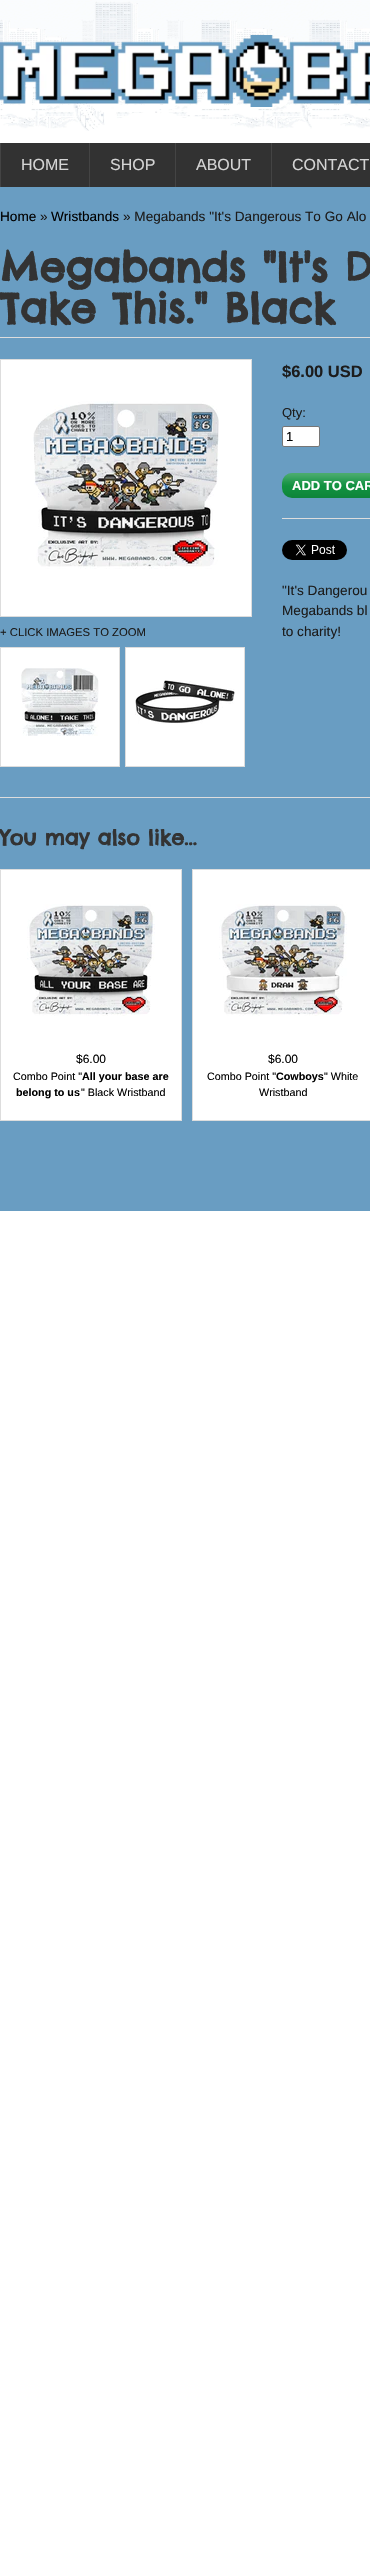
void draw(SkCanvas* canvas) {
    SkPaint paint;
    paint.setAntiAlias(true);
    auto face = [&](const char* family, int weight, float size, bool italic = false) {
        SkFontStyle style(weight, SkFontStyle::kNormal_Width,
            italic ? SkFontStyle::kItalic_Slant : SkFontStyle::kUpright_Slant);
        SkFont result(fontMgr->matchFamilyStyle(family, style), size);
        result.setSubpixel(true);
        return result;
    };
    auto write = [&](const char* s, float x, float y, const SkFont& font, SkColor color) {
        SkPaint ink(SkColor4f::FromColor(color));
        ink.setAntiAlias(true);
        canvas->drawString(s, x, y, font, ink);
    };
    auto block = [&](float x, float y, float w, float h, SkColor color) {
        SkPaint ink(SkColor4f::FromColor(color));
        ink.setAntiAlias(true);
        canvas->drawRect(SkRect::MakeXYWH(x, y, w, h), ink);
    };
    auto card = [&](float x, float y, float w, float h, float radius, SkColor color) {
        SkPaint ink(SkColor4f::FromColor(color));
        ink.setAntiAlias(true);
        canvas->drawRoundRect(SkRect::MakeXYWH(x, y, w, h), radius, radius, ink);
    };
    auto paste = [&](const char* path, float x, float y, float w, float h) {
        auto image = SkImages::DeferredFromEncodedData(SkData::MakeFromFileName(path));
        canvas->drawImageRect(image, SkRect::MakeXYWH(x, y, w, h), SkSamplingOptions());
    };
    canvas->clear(SK_ColorWHITE);
    paste("pic1.png", 0, 0, 370, 131);
    paste("pic2.png", 0, 35, 370, 72);
    block(1, 143, 369, 44, SkColorSetRGB(50, 50, 50));
    block(0, 143, 1, 44, SkColorSetRGB(68, 68, 68));
    block(89, 143, 1, 44, SkColorSetRGB(68, 68, 68));
    auto kFont1 = face("Liberation Sans", 400, 16);
    write("HOME", 21, 170, kFont1, SkColorSetRGB(212, 212, 212));
    block(175, 143, 1, 44, SkColorSetRGB(68, 68, 68));
    write("SHOP", 110, 170, kFont1, SkColorSetRGB(212, 212, 212));
    block(271, 143, 1, 44, SkColorSetRGB(68, 68, 68));
    write("ABOUT", 196, 170, kFont1, SkColorSetRGB(212, 212, 212));
    write("CONTACT", 292, 170, kFont1, SkColorSetRGB(212, 212, 212));
    block(0, 187, 370, 1024, SkColorSetRGB(105, 157, 194));
    auto kFont2 = face("Liberation Sans", 400, 13.6f);
    write("Home", 0, 221, kFont2, SK_ColorBLACK);
    write("»", 40, 221, kFont2, SkColorSetRGB(28, 28, 28));
    write("Wristbands", 51, 221, kFont2, SK_ColorBLACK);
    write("» Megabands \"It's Dangerous To Go Alo", 123, 221, kFont2, SkColorSetRGB(28, 28, 28));
    block(0, 337, 370, 1, SkColorSetRGB(221, 221, 221));
    auto kFont3 = face("Chelsea Market", 700, 40.75f);
    write("Megabands \"It's D", 0, 282, kFont3, SkColorSetRGB(51, 51, 51));
    write("Take This.\" Black", 0, 323, kFont3, SkColorSetRGB(51, 51, 51));
    paint.setColor(SK_ColorWHITE);
    canvas->drawRect(SkRect::MakeXYWH(0.5f, 359.5f, 251, 257), paint);
    paint.setStyle(SkPaint::kStroke_Style);
    paint.setStrokeWidth(1);
    paint.setColor(SkColorSetRGB(221, 221, 221));
    canvas->drawRect(SkRect::MakeXYWH(0.5f, 359.5f, 251, 257), paint);
    paste("pic3.png", 33, 401, 186, 168);
    auto kFont4 = face("Liberation Sans", 400, 11.3f);
    write("+ CLICK IMAGES TO ZOOM", 0, 636, kFont4, SkColorSetRGB(28, 28, 28));
    paint.setStyle(SkPaint::kFill_Style);
    paint.setColor(SK_ColorWHITE);
    canvas->drawRect(SkRect::MakeXYWH(0.5f, 647.5f, 119, 119), paint);
    paint.setStyle(SkPaint::kStroke_Style);
    paint.setColor(SkColorSetRGB(221, 221, 221));
    canvas->drawRect(SkRect::MakeXYWH(0.5f, 647.5f, 119, 119), paint);
    paste("pic4.png", 21, 668, 78, 68);
    paint.setStyle(SkPaint::kFill_Style);
    paint.setColor(SK_ColorWHITE);
    canvas->drawRect(SkRect::MakeXYWH(125.5f, 647.5f, 119, 119), paint);
    paint.setStyle(SkPaint::kStroke_Style);
    paint.setColor(SkColorSetRGB(221, 221, 221));
    canvas->drawRect(SkRect::MakeXYWH(125.5f, 647.5f, 119, 119), paint);
    paste("pic5.png", 135, 680, 100, 44);
    block(282, 518, 88, 1, SkColorSetRGB(221, 221, 221));
    auto kFont5 = face("Liberation Sans", 700, 16.5f);
    write("$6.00 USD", 282, 377, kFont5, SkColorSetRGB(28, 28, 28));
    auto kFont6 = face("Liberation Sans", 400, 13);
    write("Qty:", 282, 417, kFont6, SkColorSetRGB(28, 28, 28));
    paint.setStyle(SkPaint::kFill_Style);
    paint.setColor(SK_ColorWHITE);
    canvas->drawRoundRect(SkRect::MakeXYWH(282.5f, 426.5f, 37, 20), 1.5f, 1.5f, paint);
    paint.setStyle(SkPaint::kStroke_Style);
    paint.setColor(SkColorSetRGB(118, 118, 118));
    canvas->drawRoundRect(SkRect::MakeXYWH(282.5f, 426.5f, 37, 20), 1.5f, 1.5f, paint);
    write("1", 286, 441, kFont6, SK_ColorBLACK);
    card(282, 473, 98, 25, 10, SkColorSetRGB(16, 145, 63));
    paste("pic6.png", 282, 473, 88, 25);
    auto kFont7 = face("Liberation Sans", 700, 13);
    write("ADD TO CAR", 292, 490, kFont7, SK_ColorWHITE);
    paste("pic7.png", 282, 540, 65, 20);
    write("\"It's Dangerou", 282, 595, kFont2, SkColorSetRGB(28, 28, 28));
    write("Megabands bl", 282, 615, kFont2, SkColorSetRGB(28, 28, 28));
    write("to charity!", 282, 636, kFont2, SkColorSetRGB(28, 28, 28));
    block(0, 797, 370, 1, SkColorSetRGB(221, 221, 221));
    auto kFont8 = face("Chelsea Market", 700, 20.5f);
    write("You may also like...", 0, 845, kFont8, SkColorSetRGB(51, 51, 51));
    paint.setStyle(SkPaint::kFill_Style);
    paint.setColor(SK_ColorWHITE);
    canvas->drawRect(SkRect::MakeXYWH(0.5f, 869.5f, 181, 251), paint);
    paint.setStyle(SkPaint::kStroke_Style);
    paint.setColor(SkColorSetRGB(221, 221, 221));
    canvas->drawRect(SkRect::MakeXYWH(0.5f, 869.5f, 181, 251), paint);
    paste("pic8.png", 27, 904, 128, 112);
    auto kFont9 = face("Liberation Sans", 400, 12);
    write("$6.00", 76, 1063, kFont9, SK_ColorBLACK);
    auto kFont10 = face("Liberation Sans", 400, 10.75f);
    write("Combo Point \"", 13, 1080, kFont10, SK_ColorBLACK);
    auto kFont11 = face("Liberation Sans", 700, 10.75f);
    write("All your base are", 82, 1080, kFont11, SK_ColorBLACK);
    write("belong to us", 16, 1096, kFont11, SK_ColorBLACK);
    write("\" Black Wristband", 81, 1096, kFont10, SK_ColorBLACK);
    paint.setStyle(SkPaint::kFill_Style);
    paint.setColor(SK_ColorWHITE);
    canvas->drawRect(SkRect::MakeXYWH(192.5f, 869.5f, 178, 251), paint);
    paint.setStyle(SkPaint::kStroke_Style);
    paint.setColor(SkColorSetRGB(221, 221, 221));
    canvas->drawRect(SkRect::MakeXYWH(192.5f, 869.5f, 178, 251), paint);
    paste("pic9.png", 219, 904, 128, 112);
    write("$6.00", 268, 1063, kFont9, SK_ColorBLACK);
    write("Combo Point \"", 207, 1080, kFont10, SK_ColorBLACK);
    write("Cowboys", 276, 1080, kFont11, SK_ColorBLACK);
    write("\" White", 324, 1080, kFont10, SK_ColorBLACK);
    write("Wristband", 259, 1096, kFont10, SK_ColorBLACK);
}
